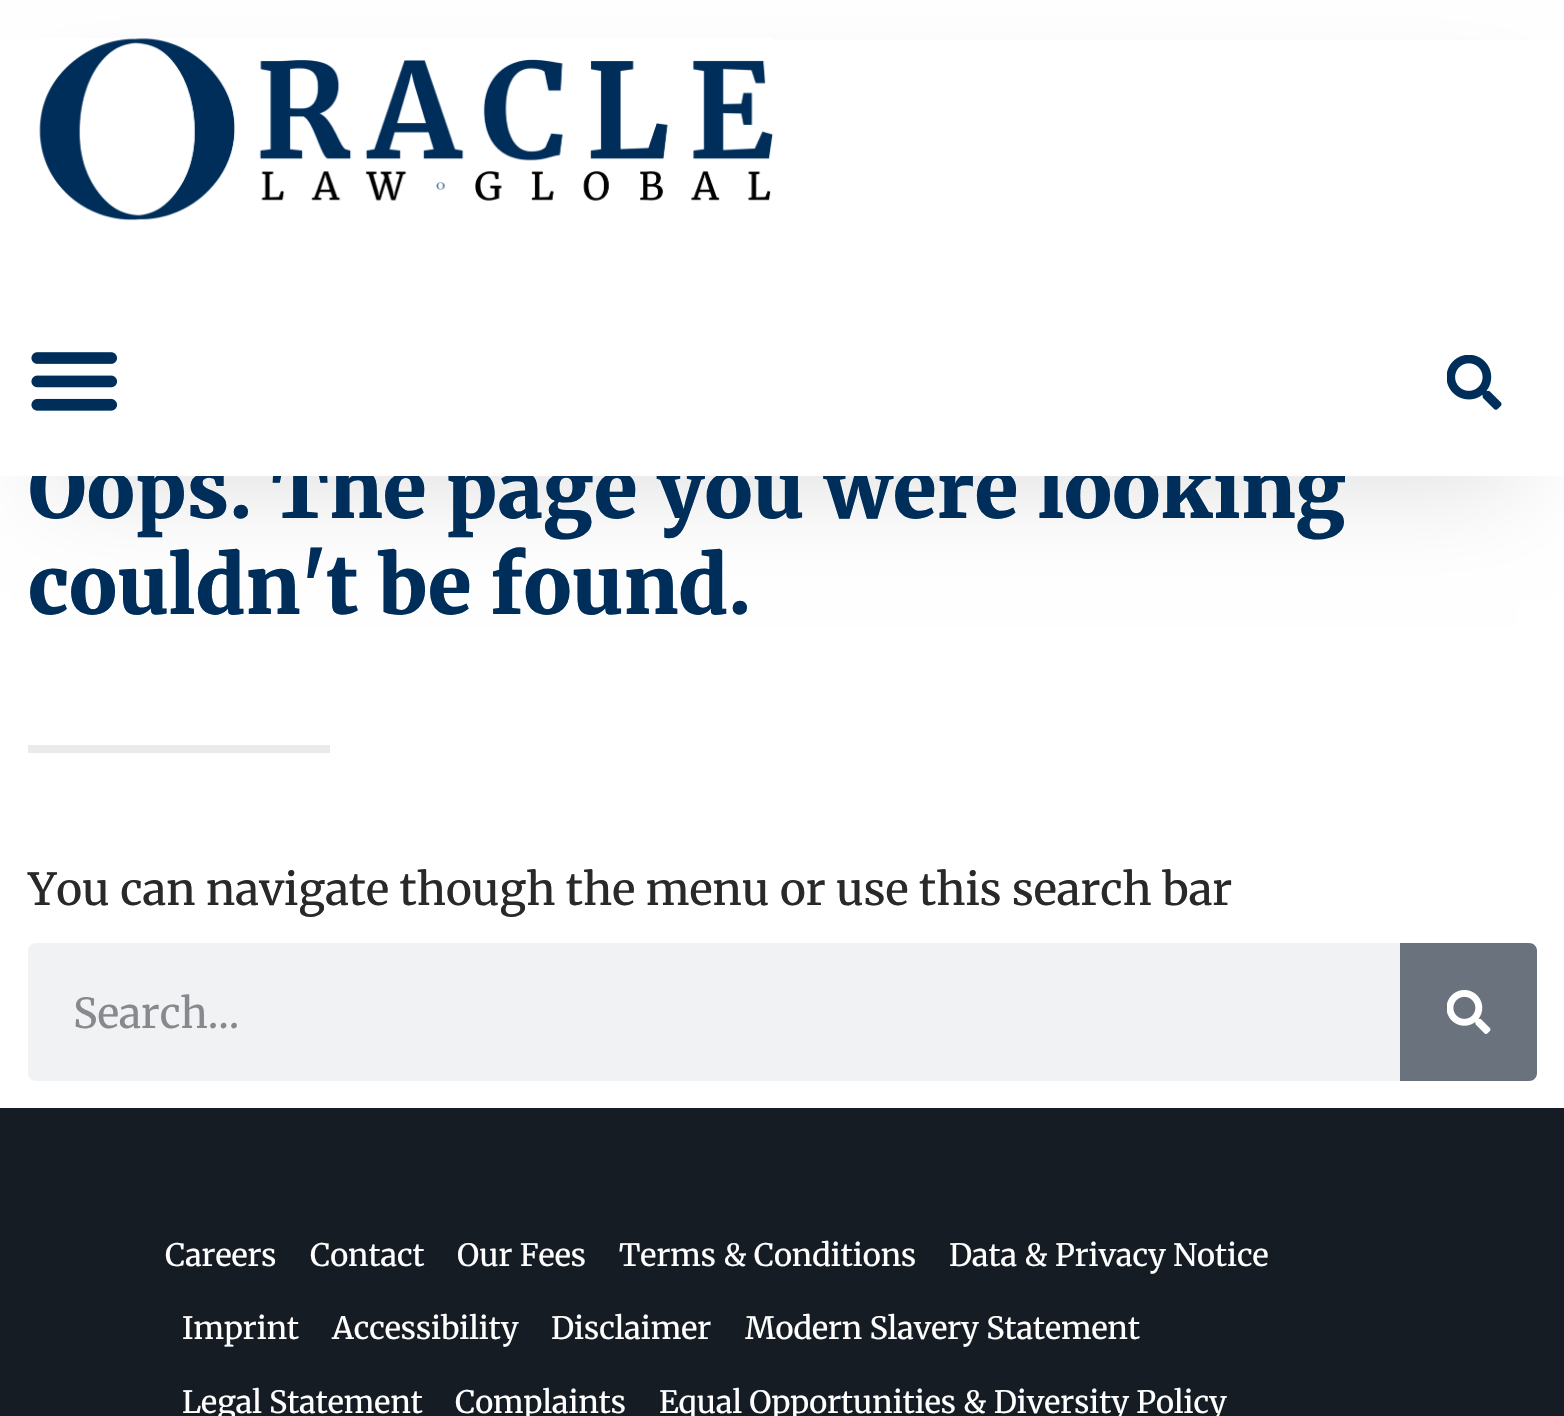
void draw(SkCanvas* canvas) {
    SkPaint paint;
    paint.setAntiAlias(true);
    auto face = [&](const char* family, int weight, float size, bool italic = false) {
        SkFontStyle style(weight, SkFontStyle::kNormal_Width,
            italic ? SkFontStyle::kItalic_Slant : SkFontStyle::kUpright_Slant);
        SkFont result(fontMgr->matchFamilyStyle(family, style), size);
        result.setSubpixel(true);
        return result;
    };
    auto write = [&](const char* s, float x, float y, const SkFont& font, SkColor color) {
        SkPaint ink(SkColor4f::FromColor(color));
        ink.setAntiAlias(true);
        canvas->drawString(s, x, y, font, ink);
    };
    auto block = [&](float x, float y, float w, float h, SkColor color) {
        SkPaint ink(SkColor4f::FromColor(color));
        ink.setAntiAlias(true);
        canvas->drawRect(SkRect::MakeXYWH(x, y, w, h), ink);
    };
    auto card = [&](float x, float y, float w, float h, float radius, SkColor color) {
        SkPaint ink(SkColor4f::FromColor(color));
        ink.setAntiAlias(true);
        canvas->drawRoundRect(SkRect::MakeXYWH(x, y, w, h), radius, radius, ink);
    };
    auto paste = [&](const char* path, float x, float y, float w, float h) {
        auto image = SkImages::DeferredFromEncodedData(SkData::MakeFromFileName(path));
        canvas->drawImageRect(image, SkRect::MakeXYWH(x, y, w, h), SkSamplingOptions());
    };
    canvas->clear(SK_ColorWHITE);
    paint.setColor(SkColorSetARGB(31, 0, 0, 0));
    paint.setMaskFilter(SkMaskFilter::MakeBlur(kNormal_SkBlurStyle, 47));
    canvas->drawRect(SkRect::MakeXYWH(47, 105, 1471, 382), paint);
    paint.setMaskFilter(nullptr);
    auto kFont1 = face("Merriweather", 900, 79.7f);
    write("Oops. The page you were looking", 28, 518, kFont1, SkColorSetRGB(0, 46, 91));
    block(0, 40, 1564, 436, SK_ColorWHITE);
    paste("pic1.png", 39, 38, 734, 183);
    paste("pic2.png", 31, 352, 87, 59);
    paste("pic3.png", 1447, 355, 55, 55);
    write("couldn't be found.", 28, 614, kFont1, SkColorSetRGB(0, 46, 91));
    block(28, 745, 302, 8, SkColorSetRGB(236, 233, 233));
    auto kFont2 = face("Merriweather", 500, 44);
    write("You can navigate though the menu or use this search bar", 28, 905, kFont2, SkColorSetRGB(42, 41, 41));
    card(28, 943, 1509, 138, 8, SkColorSetRGB(241, 242, 243));
    auto kFont3 = face("Merriweather", 400, 41.25f);
    write("Search...", 73, 1028, kFont3, SkColorSetRGB(134, 138, 142));
    paint.setColor(SkColorSetRGB(105, 114, 125));
    canvas->drawPath(SkPathBuilder().moveTo(1400, 943).lineTo(1529, 943).cubicTo(1533.5f, 943, 1537, 946.5f, 1537, 951).lineTo(1537, 1073).cubicTo(1537, 1077.5f, 1533.5f, 1081, 1529, 1081).lineTo(1400, 1081).close().detach(), paint);
    paste("pic4.png", 1447, 990, 44, 44);
    block(0, 1108, 1564, 308, SkColorSetRGB(22, 28, 36));
    auto kFont4 = face("Merriweather", 400, 30.75f);
    write("Careers", 165, 1266, kFont4, SK_ColorWHITE);
    write("Contact", 310, 1266, kFont4, SK_ColorWHITE);
    write("Our Fees", 457, 1266, kFont4, SK_ColorWHITE);
    write("Terms & Conditions", 619, 1266, kFont4, SK_ColorWHITE);
    write("Data & Privacy Notice", 949, 1266, kFont4, SK_ColorWHITE);
    write("Imprint", 182, 1339, kFont4, SK_ColorWHITE);
    write("Accessibility", 332, 1339, kFont4, SK_ColorWHITE);
    write("Disclaimer", 551, 1339, kFont4, SK_ColorWHITE);
    write("Modern Slavery Statement", 745, 1339, kFont4, SK_ColorWHITE);
    write("Legal Statement", 182, 1413, kFont4, SK_ColorWHITE);
    write("Complaints", 455, 1413, kFont4, SK_ColorWHITE);
    write("Equal Opportunities & Diversity Policy", 659, 1413, kFont4, SK_ColorWHITE);
}
